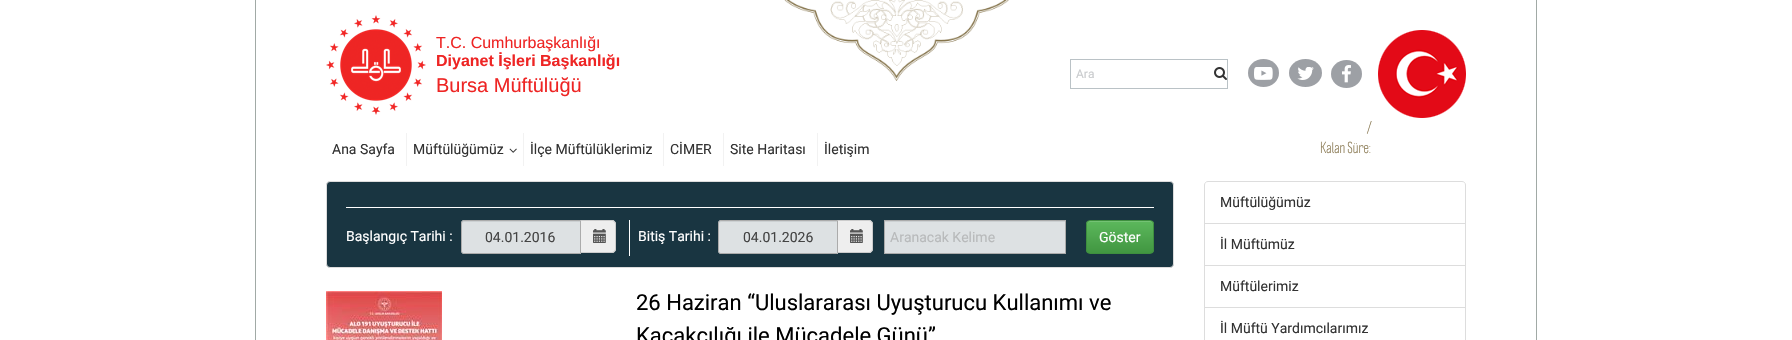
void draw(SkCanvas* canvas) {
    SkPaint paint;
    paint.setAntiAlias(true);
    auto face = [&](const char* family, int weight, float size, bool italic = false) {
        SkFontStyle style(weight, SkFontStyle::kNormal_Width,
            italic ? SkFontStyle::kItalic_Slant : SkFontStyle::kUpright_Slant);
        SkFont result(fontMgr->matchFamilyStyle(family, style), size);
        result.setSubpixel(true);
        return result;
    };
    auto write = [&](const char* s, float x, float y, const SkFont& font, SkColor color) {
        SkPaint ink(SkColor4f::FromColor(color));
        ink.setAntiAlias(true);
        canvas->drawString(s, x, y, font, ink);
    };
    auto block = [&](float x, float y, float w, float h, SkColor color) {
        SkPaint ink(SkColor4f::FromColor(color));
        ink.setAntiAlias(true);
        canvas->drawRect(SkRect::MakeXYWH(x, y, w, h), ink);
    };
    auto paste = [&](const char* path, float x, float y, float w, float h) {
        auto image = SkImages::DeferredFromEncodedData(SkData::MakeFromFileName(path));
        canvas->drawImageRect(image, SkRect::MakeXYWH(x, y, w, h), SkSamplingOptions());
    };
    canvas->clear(SK_ColorWHITE);
    block(1536, 0, 1, 340, SkColorSetRGB(161, 170, 166));
    block(255, 0, 1, 340, SkColorSetRGB(161, 170, 166));
    paste("pic1.png", 784, 0, 225, 81);
    paste("pic2.png", 326, 15, 100, 100);
    auto kFont1 = face("Liberation Sans", 400, 16);
    write("T.C. Cumhurbaşkanlığı", 436, 48, kFont1, SkColorSetRGB(238, 37, 36));
    auto kFont2 = face("Liberation Sans", 700, 16);
    write("Diyanet İşleri Başkanlığı", 436, 66, kFont2, SkColorSetRGB(238, 37, 36));
    auto kFont3 = face("Liberation Sans", 400, 20);
    write("Bursa Müftülüğü", 436, 92, kFont3, SkColorSetRGB(238, 37, 36));
    paint.setStyle(SkPaint::kStroke_Style);
    paint.setStrokeWidth(1);
    paint.setColor(SkColorSetRGB(186, 194, 198));
    canvas->drawRect(SkRect::MakeXYWH(1070.5f, 59.5f, 157, 29), paint);
    auto kFont4 = face("Roboto", 400, 12);
    write("Ara", 1076, 78, kFont4, SkColorSetRGB(202, 204, 206));
    paste("pic3.png", 1214, 67, 13, 13);
    paint.setStyle(SkPaint::kFill_Style);
    paint.setColor(SkColorSetRGB(157, 160, 165));
    canvas->drawOval(SkRect::MakeXYWH(1248, 59, 31, 28), paint);
    paste("pic4.png", 1254, 67, 19, 13);
    canvas->drawOval(SkRect::MakeXYWH(1289, 59, 33, 28), paint);
    paste("pic5.png", 1297, 67, 17, 13);
    canvas->drawOval(SkRect::MakeXYWH(1331, 60, 31, 28), paint);
    paste("pic6.png", 1342, 65, 9, 18);
    paste("pic7.png", 1378, 30, 88, 88);
    block(406, 133, 1, 33, SkColorSetRGB(242, 242, 242));
    auto kFont5 = face("Roboto", 400, 14);
    write("Ana Sayfa", 332, 154, kFont5, SkColorSetRGB(51, 51, 51));
    block(523, 133, 1, 33, SkColorSetRGB(242, 242, 242));
    write("Müftülüğümüz", 413, 154, kFont5, SkColorSetRGB(51, 51, 51));
    paste("pic8.png", 509, 148, 8, 5);
    block(663, 133, 1, 33, SkColorSetRGB(242, 242, 242));
    write("İlçe Müftülüklerimiz", 530, 154, kFont5, SkColorSetRGB(51, 51, 51));
    block(723, 133, 1, 33, SkColorSetRGB(242, 242, 242));
    write("CİMER", 670, 154, kFont5, SkColorSetRGB(51, 51, 51));
    block(817, 133, 1, 33, SkColorSetRGB(242, 242, 242));
    write("Site Haritası", 730, 154, kFont5, SkColorSetRGB(51, 51, 51));
    write("İletişim", 824, 154, kFont5, SkColorSetRGB(51, 51, 51));
    auto kFont6 = face("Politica", 400, 14);
    write("/", 1367, 133, kFont6, SkColorSetRGB(140, 124, 86));
    write("Kalan Süre:", 1320, 153, kFont6, SkColorSetRGB(140, 124, 86));
    paint.setColor(SkColorSetRGB(25, 53, 65));
    canvas->drawRoundRect(SkRect::MakeXYWH(326.5f, 181.5f, 847, 86), 3.5f, 3.5f, paint);
    paint.setStyle(SkPaint::kStroke_Style);
    paint.setColor(SkColorSetRGB(220, 220, 220));
    canvas->drawRoundRect(SkRect::MakeXYWH(326.5f, 181.5f, 847, 86), 3.5f, 3.5f, paint);
    block(346, 207, 808, 1, SK_ColorWHITE);
    write("Başlangıç Tarihi :", 346, 241, kFont5, SK_ColorWHITE);
    paint.setStyle(SkPaint::kFill_Style);
    paint.setColor(SkColorSetRGB(221, 225, 227));
    canvas->drawPath(SkPathBuilder().moveTo(464, 220).lineTo(581, 220).lineTo(581, 254).lineTo(464, 254).cubicTo(462.5f, 254, 461, 252.5f, 461, 251).lineTo(461, 223).cubicTo(461, 221.5f, 462.5f, 220, 464, 220).close().detach(), paint);
    paint.setColor(SkColorSetRGB(204, 208, 210));
    canvas->drawPath(SkPathBuilder().moveTo(464, 222).lineTo(580, 222).lineTo(580, 221).lineTo(464, 221).cubicTo(462, 221, 462, 223, 462, 224).cubicTo(462, 223, 463, 222, 464, 222).close().detach(), paint);
    paint.setStyle(SkPaint::kStroke_Style);
    paint.setColor(SkColorSetRGB(171, 171, 171));
    canvas->drawPath(SkPathBuilder().moveTo(464, 220.5f).lineTo(580.5f, 220.5f).lineTo(580.5f, 253.5f).lineTo(464, 253.5f).cubicTo(462.5f, 253.5f, 461.5f, 252.5f, 461.5f, 251).lineTo(461.5f, 223).cubicTo(461.5f, 221.5f, 462.5f, 220.5f, 464, 220.5f).close().detach(), paint);
    write("04.01.2016", 485, 242, kFont5, SkColorSetRGB(68, 68, 68));
    paint.setStyle(SkPaint::kFill_Style);
    paint.setColor(SkColorSetRGB(238, 238, 238));
    canvas->drawPath(SkPathBuilder().moveTo(581, 220).lineTo(612, 220).cubicTo(614, 220, 616, 222, 616, 224).lineTo(616, 249).cubicTo(616, 251, 614, 253, 612, 253).lineTo(581, 253).close().detach(), paint);
    paint.setColor(SkColorSetRGB(204, 204, 204));
    canvas->drawPath(SkPathBuilder(SkPathFillType::kEvenOdd).moveTo(581, 220).lineTo(612, 220).cubicTo(614, 220, 616, 222, 616, 224).lineTo(616, 249).cubicTo(616, 251, 614, 253, 612, 253).lineTo(581, 253).close().moveTo(581, 221).lineTo(612, 221).cubicTo(613.5f, 221, 615, 222.5f, 615, 224).lineTo(615, 249).cubicTo(615, 250.5f, 613.5f, 252, 612, 252).lineTo(581, 252).close().detach(), paint);
    paste("pic9.png", 593, 229, 13, 14);
    block(629, 220, 1, 36, SK_ColorWHITE);
    write("Bitiş Tarihi :", 638, 241, kFont5, SK_ColorWHITE);
    paint.setColor(SkColorSetRGB(221, 225, 227));
    canvas->drawPath(SkPathBuilder().moveTo(721, 220).lineTo(838, 220).lineTo(838, 254).lineTo(721, 254).cubicTo(719.5f, 254, 718, 252.5f, 718, 251).lineTo(718, 223).cubicTo(718, 221.5f, 719.5f, 220, 721, 220).close().detach(), paint);
    paint.setColor(SkColorSetRGB(204, 208, 210));
    canvas->drawPath(SkPathBuilder().moveTo(721, 222).lineTo(837, 222).lineTo(837, 221).lineTo(721, 221).cubicTo(719, 221, 719, 223, 719, 224).cubicTo(719, 223, 720, 222, 721, 222).close().detach(), paint);
    paint.setStyle(SkPaint::kStroke_Style);
    paint.setColor(SkColorSetRGB(171, 171, 171));
    canvas->drawPath(SkPathBuilder().moveTo(721, 220.5f).lineTo(837.5f, 220.5f).lineTo(837.5f, 253.5f).lineTo(721, 253.5f).cubicTo(719.5f, 253.5f, 718.5f, 252.5f, 718.5f, 251).lineTo(718.5f, 223).cubicTo(718.5f, 221.5f, 719.5f, 220.5f, 721, 220.5f).close().detach(), paint);
    write("04.01.2026", 743, 242, kFont5, SkColorSetRGB(68, 68, 68));
    paint.setStyle(SkPaint::kFill_Style);
    paint.setColor(SkColorSetRGB(238, 238, 238));
    canvas->drawPath(SkPathBuilder().moveTo(838, 220).lineTo(869, 220).cubicTo(871, 220, 873, 222, 873, 224).lineTo(873, 249).cubicTo(873, 251, 871, 253, 869, 253).lineTo(838, 253).close().detach(), paint);
    paint.setColor(SkColorSetRGB(204, 204, 204));
    canvas->drawPath(SkPathBuilder(SkPathFillType::kEvenOdd).moveTo(838, 220).lineTo(869, 220).cubicTo(871, 220, 873, 222, 873, 224).lineTo(873, 249).cubicTo(873, 251, 871, 253, 869, 253).lineTo(838, 253).close().moveTo(838, 221).lineTo(869, 221).cubicTo(870.5f, 221, 872, 222.5f, 872, 224).lineTo(872, 249).cubicTo(872, 250.5f, 870.5f, 252, 869, 252).lineTo(838, 252).close().detach(), paint);
    paste("pic9.png", 850, 229, 13, 14);
    block(885, 222, 180, 31, SkColorSetRGB(221, 225, 227));
    block(885, 221, 180, 1, SkColorSetRGB(204, 208, 210));
    paint.setStyle(SkPaint::kStroke_Style);
    paint.setColor(SkColorSetRGB(171, 171, 171));
    canvas->drawRect(SkRect::MakeXYWH(884.5f, 220.5f, 181, 33), paint);
    write("Aranacak Kelime", 890, 242, kFont5, SkColorSetRGB(184, 186, 187));
    canvas->save();
    canvas->clipPath(SkPathBuilder().moveTo(1090, 220).lineTo(1150, 220).cubicTo(1152, 220, 1154, 222, 1154, 224).lineTo(1154, 250).cubicTo(1154, 252, 1152, 254, 1150, 254).lineTo(1090, 254).cubicTo(1088, 254, 1086, 252, 1086, 250).lineTo(1086, 224).cubicTo(1086, 222, 1088, 220, 1090, 220).close().detach(), true);
    paint.setStyle(SkPaint::kFill_Style);
    {
        const SkColor colors[] = {SkColorSetRGB(92, 184, 92), SkColorSetRGB(65, 150, 65)};
        const float stops[] = {0, 1};
        const SkPoint ends[] = {{1120, 221}, {1120, 253}};
        paint.setShader(SkGradientShader::MakeLinear(ends, colors, stops, 2, SkTileMode::kClamp));
        paint.setAlpha(255);
    }
    canvas->drawRect(SkRect::MakeXYWH(1086, 221, 68, 32), paint);
    canvas->restore();
    paint.setShader(nullptr);
    paint.setColor(SkColorSetRGB(116, 194, 116));
    canvas->drawPath(SkPathBuilder().moveTo(1090, 222).lineTo(1150, 222).cubicTo(1152, 222, 1153, 223, 1153, 225).cubicTo(1153, 218, 1144, 221, 1140, 221).lineTo(1100, 221).cubicTo(1096, 221, 1087, 218, 1087, 225).cubicTo(1087, 223, 1088, 222, 1090, 222).close().detach(), paint);
    paint.setStyle(SkPaint::kStroke_Style);
    paint.setColor(SkColorSetRGB(62, 143, 62));
    canvas->drawRoundRect(SkRect::MakeXYWH(1086.5f, 220.5f, 67, 33), 3.5f, 3.5f, paint);
    write("Göster", 1099, 242, kFont5, SK_ColorWHITE);
    paste("pic10.png", 326, 291, 116, 49);
    auto kFont7 = face("Roboto", 400, 22);
    write("26 Haziran “Uluslararası Uyuşturucu Kullanımı ve", 636, 310, kFont7, SK_ColorBLACK);
    write("Kaçakçılığı ile Mücadele Günü”", 636, 343, kFont7, SK_ColorBLACK);
    paint.setColor(SkColorSetRGB(221, 221, 221));
    canvas->drawPath(SkPathBuilder().moveTo(1208, 181.5f).lineTo(1462, 181.5f).cubicTo(1464, 181.5f, 1465.5f, 183, 1465.5f, 185).lineTo(1465.5f, 223.5f).lineTo(1204.5f, 223.5f).lineTo(1204.5f, 185).cubicTo(1204.5f, 183, 1206, 181.5f, 1208, 181.5f).close().detach(), paint);
    write("Müftülüğümüz", 1220, 207, kFont5, SkColorSetRGB(51, 51, 51));
    canvas->drawRect(SkRect::MakeXYWH(1204.5f, 223.5f, 261, 42), paint);
    write("İl Müftümüz", 1220, 249, kFont5, SkColorSetRGB(51, 51, 51));
    canvas->drawRect(SkRect::MakeXYWH(1204.5f, 265.5f, 261, 42), paint);
    write("Müftülerimiz", 1220, 291, kFont5, SkColorSetRGB(51, 51, 51));
    canvas->drawRect(SkRect::MakeXYWH(1204.5f, 307.5f, 261, 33), paint);
    write("İl Müftü Yardımcılarımız", 1220, 333, kFont5, SkColorSetRGB(51, 51, 51));
}
